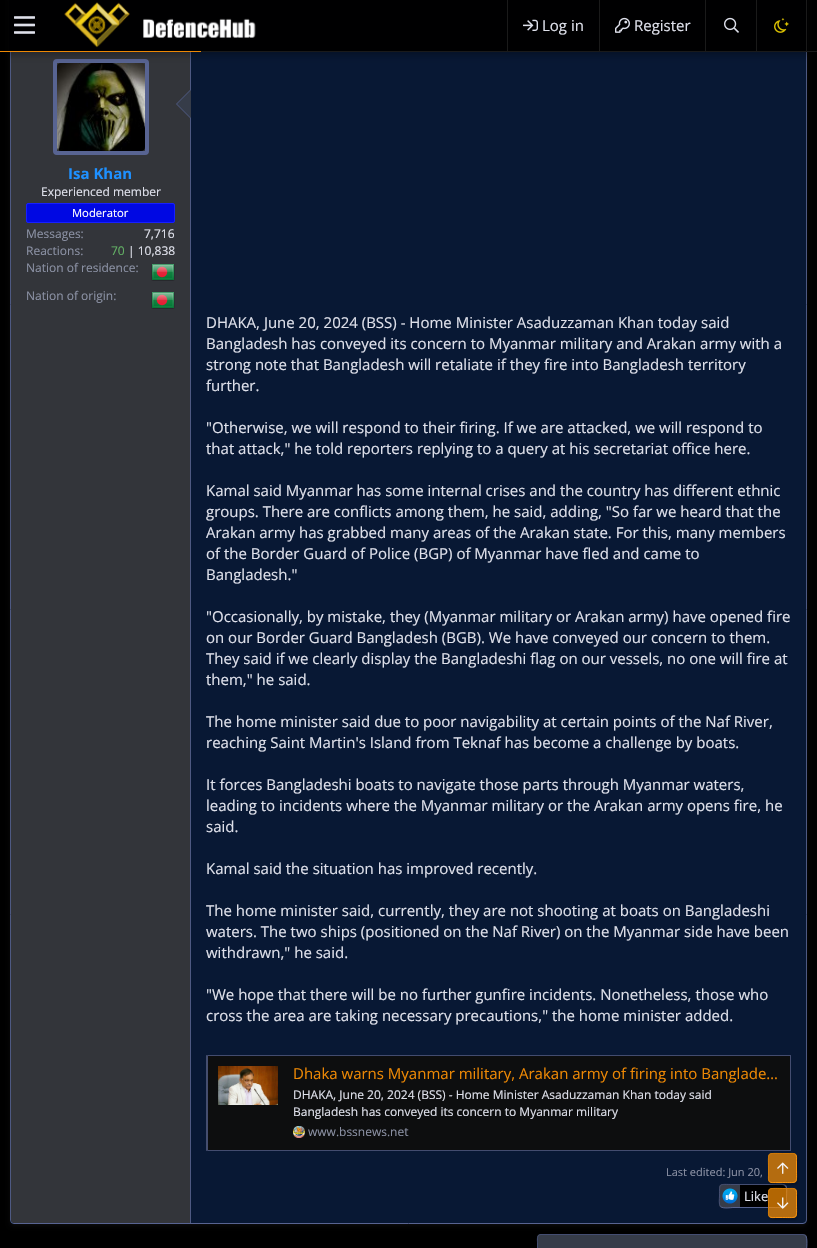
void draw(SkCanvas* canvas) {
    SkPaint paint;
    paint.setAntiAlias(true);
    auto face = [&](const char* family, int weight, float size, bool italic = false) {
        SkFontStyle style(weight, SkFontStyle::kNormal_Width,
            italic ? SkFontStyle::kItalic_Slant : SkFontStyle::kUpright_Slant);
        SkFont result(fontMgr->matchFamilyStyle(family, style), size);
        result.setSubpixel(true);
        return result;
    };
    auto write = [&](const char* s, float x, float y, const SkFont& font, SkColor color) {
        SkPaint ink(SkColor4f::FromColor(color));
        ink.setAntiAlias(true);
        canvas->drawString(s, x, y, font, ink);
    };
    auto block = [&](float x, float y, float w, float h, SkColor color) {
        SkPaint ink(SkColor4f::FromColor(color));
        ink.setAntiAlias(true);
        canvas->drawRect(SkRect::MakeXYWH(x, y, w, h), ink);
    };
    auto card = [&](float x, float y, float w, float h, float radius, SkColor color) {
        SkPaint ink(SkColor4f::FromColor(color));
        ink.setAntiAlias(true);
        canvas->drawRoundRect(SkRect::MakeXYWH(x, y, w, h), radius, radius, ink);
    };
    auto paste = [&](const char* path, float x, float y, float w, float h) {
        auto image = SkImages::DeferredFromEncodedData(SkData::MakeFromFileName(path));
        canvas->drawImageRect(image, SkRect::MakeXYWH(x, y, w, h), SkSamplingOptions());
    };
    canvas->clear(SK_ColorBLACK);
    paint.setColor(SkColorSetARGB(26, 108, 111, 115));
    paint.setMaskFilter(SkMaskFilter::MakeBlur(kNormal_SkBlurStyle, 2));
    canvas->drawRoundRect(SkRect::MakeXYWH(10, -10, 797, 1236), 4, 4, paint);
    paint.setMaskFilter(nullptr);
    card(10, -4, 797, 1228, 4, SkColorSetRGB(8, 24, 52));
    paint.setStyle(SkPaint::kStroke_Style);
    paint.setStrokeWidth(1);
    paint.setColor(SkColorSetRGB(78, 89, 130));
    canvas->drawPath(SkPathBuilder().moveTo(805.5f, -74.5f).lineTo(806.5f, -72).lineTo(806.5f, 1220).lineTo(805.5f, 1222.5f).detach(), paint);
    paint.setColor(SkColorSetRGB(88, 100, 146));
    canvas->drawPath(SkPathBuilder().moveTo(805.5f, 1222.5f).lineTo(803, 1223.5f).lineTo(14, 1223.5f).lineTo(11.5f, 1222.5f).detach(), paint);
    paint.setColor(SkColorSetRGB(78, 89, 130));
    canvas->drawPath(SkPathBuilder().moveTo(11.5f, 1222.5f).lineTo(10.5f, 1220).lineTo(10.5f, -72).lineTo(11.5f, -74.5f).detach(), paint);
    paint.setStyle(SkPaint::kFill_Style);
    paint.setColor(SkColorSetRGB(51, 53, 58));
    canvas->drawPath(SkPathBuilder().moveTo(14, -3).lineTo(191, -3).lineTo(191, 1223).lineTo(14, 1223).cubicTo(12.5f, 1223, 11, 1221.5f, 11, 1220).lineTo(11, 0).cubicTo(11, -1.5f, 12.5f, -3, 14, -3).close().detach(), paint);
    block(190, 52, 1, 1171, SkColorSetRGB(78, 89, 130));
    paint.setStyle(SkPaint::kStroke_Style);
    paint.setStrokeWidth(4);
    paint.setColor(SkColorSetRGB(88, 100, 146));
    canvas->drawRoundRect(SkRect::MakeXYWH(55, 61, 92, 92), 2, 2, paint);
    paste("pic7.png", 57, 63, 88, 88);
    paint.setStyle(SkPaint::kFill_Style);
    paint.setColor(SkColorSetARGB(77, 0, 0, 0));
    paint.setMaskFilter(SkMaskFilter::MakeBlur(kNormal_SkBlurStyle, 4));
    canvas->drawRect(SkRect::MakeXYWH(-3, -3, 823, 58), paint);
    paint.setMaskFilter(nullptr);
    block(9, 0, 799, 51, SkColorSetRGB(0, 0, 1));
    block(201, 51, 616, 1, SkColorSetRGB(26, 26, 26));
    paste("pic1.png", 14, 16, 21, 18);
    paste("pic2.png", 64, 2, 192, 46);
    block(507, 0, 1, 51, SkColorSetRGB(26, 26, 26));
    paste("pic3.png", 523, 19, 15, 12);
    auto kFont1 = face("Open Sans", 400, 15);
    write("Log in", 542, 31, kFont1, SkColorSetRGB(222, 224, 234));
    block(599, 0, 1, 51, SkColorSetRGB(26, 26, 26));
    paste("pic4.png", 615, 17, 15, 16);
    write("Register", 634, 31, kFont1, SkColorSetRGB(222, 224, 234));
    block(806, 0, 1, 51, SkColorSetRGB(26, 26, 26));
    block(705, 0, 1, 51, SkColorSetRGB(26, 26, 26));
    paste("pic5.png", 724, 17, 15, 16);
    block(756, 0, 1, 51, SkColorSetRGB(26, 26, 26));
    paste("pic6.png", 774, 18, 15, 15);
    block(0, 51, 201, 1, SkColorSetRGB(237, 136, 4));
    paint.setColor(SkColorSetRGB(78, 89, 130));
    canvas->drawPath(SkPathBuilder().moveTo(191, 89).lineTo(191, 119).lineTo(176, 104).close().detach(), paint);
    paint.setColor(SkColorSetRGB(54, 60, 73));
    canvas->drawPath(SkPathBuilder().moveTo(191, 90).lineTo(191, 118).lineTo(177, 104).close().detach(), paint);
    auto kFont2 = face("Open Sans", 700, 15);
    write("Isa Khan", 68, 179, kFont2, SkColorSetRGB(30, 144, 255));
    auto kFont3 = face("Open Sans", 400, 12);
    write("Experienced member", 41, 196, kFont3, SkColorSetRGB(222, 224, 234));
    paint.setColor(SkColorSetRGB(0, 8, 227));
    canvas->drawRoundRect(SkRect::MakeXYWH(26.5f, 203.5f, 148, 19), 1.5f, 1.5f, paint);
    paint.setStyle(SkPaint::kStroke_Style);
    paint.setStrokeWidth(1);
    paint.setColor(SkColorSetRGB(23, 31, 255));
    canvas->drawRoundRect(SkRect::MakeXYWH(26.5f, 203.5f, 148, 19), 1.5f, 1.5f, paint);
    auto kFont4 = face("Open Sans", 400, 11.25f);
    write("Moderator", 72, 217, kFont4, SK_ColorWHITE);
    write("Messages:", 26, 238, kFont3, SkColorSetRGB(139, 145, 164));
    write("7,716", 144, 238, kFont3, SkColorSetRGB(222, 224, 234));
    write("Reactions:", 26, 255, kFont3, SkColorSetRGB(139, 145, 164));
    write("70", 111, 255, kFont3, SkColorSetRGB(99, 178, 101));
    write("| 10,838", 128, 255, kFont3, SkColorSetRGB(222, 224, 234));
    write("Nation of residence:", 26, 272, kFont3, SkColorSetRGB(139, 145, 164));
    paste("pic8.png", 151, 264, 24, 17);
    write("Nation of origin:", 26, 300, kFont3, SkColorSetRGB(139, 145, 164));
    paste("pic8.png", 151, 292, 24, 17);
    write("DHAKA, June 20, 2024 (BSS) - Home Minister Asaduzzaman Khan today said", 206, 328, kFont1, SkColorSetRGB(222, 224, 234));
    write("Bangladesh has conveyed its concern to Myanmar military and Arakan army with a", 206, 349, kFont1, SkColorSetRGB(222, 224, 234));
    write("strong note that Bangladesh will retaliate if they fire into Bangladesh territory", 206, 370, kFont1, SkColorSetRGB(222, 224, 234));
    write("further.", 206, 391, kFont1, SkColorSetRGB(222, 224, 234));
    write("\"Otherwise, we will respond to their firing. If we are attacked, we will respond to", 206, 433, kFont1, SkColorSetRGB(222, 224, 234));
    write("that attack,\" he told reporters replying to a query at his secretariat office here.", 206, 454, kFont1, SkColorSetRGB(222, 224, 234));
    write("Kamal said Myanmar has some internal crises and the country has different ethnic", 206, 496, kFont1, SkColorSetRGB(222, 224, 234));
    write("groups. There are conflicts among them, he said, adding, \"So far we heard that the", 206, 517, kFont1, SkColorSetRGB(222, 224, 234));
    write("Arakan army has grabbed many areas of the Arakan state. For this, many members", 206, 538, kFont1, SkColorSetRGB(222, 224, 234));
    write("of the Border Guard of Police (BGP) of Myanmar have fled and came to", 206, 559, kFont1, SkColorSetRGB(222, 224, 234));
    write("Bangladesh.\"", 206, 580, kFont1, SkColorSetRGB(222, 224, 234));
    write("\"Occasionally, by mistake, they (Myanmar military or Arakan army) have opened fire", 206, 622, kFont1, SkColorSetRGB(222, 224, 234));
    write("on our Border Guard Bangladesh (BGB). We have conveyed our concern to them.", 206, 643, kFont1, SkColorSetRGB(222, 224, 234));
    write("They said if we clearly display the Bangladeshi flag on our vessels, no one will fire at", 206, 664, kFont1, SkColorSetRGB(222, 224, 234));
    write("them,\" he said.", 206, 685, kFont1, SkColorSetRGB(222, 224, 234));
    write("The home minister said due to poor navigability at certain points of the Naf River,", 206, 727, kFont1, SkColorSetRGB(222, 224, 234));
    write("reaching Saint Martin's Island from Teknaf has become a challenge by boats.", 206, 748, kFont1, SkColorSetRGB(222, 224, 234));
    write("It forces Bangladeshi boats to navigate those parts through Myanmar waters,", 206, 790, kFont1, SkColorSetRGB(222, 224, 234));
    write("leading to incidents where the Myanmar military or the Arakan army opens fire, he", 206, 811, kFont1, SkColorSetRGB(222, 224, 234));
    write("said.", 206, 832, kFont1, SkColorSetRGB(222, 224, 234));
    write("Kamal said the situation has improved recently.", 206, 874, kFont1, SkColorSetRGB(222, 224, 234));
    write("The home minister said, currently, they are not shooting at boats on Bangladeshi", 206, 916, kFont1, SkColorSetRGB(222, 224, 234));
    write("waters. The two ships (positioned on the Naf River) on the Myanmar side have been", 206, 937, kFont1, SkColorSetRGB(222, 224, 234));
    write("withdrawn,\" he said.", 206, 958, kFont1, SkColorSetRGB(222, 224, 234));
    write("\"We hope that there will be no further gunfire incidents. Nonetheless, those who", 206, 1000, kFont1, SkColorSetRGB(222, 224, 234));
    write("cross the area are taking necessary precautions,\" the home minister added.", 206, 1021, kFont1, SkColorSetRGB(222, 224, 234));
    block(208, 1056, 582, 94, SkColorSetRGB(13, 14, 15));
    paint.setStyle(SkPaint::kFill_Style);
    paint.setColor(SkColorSetRGB(67, 76, 111));
    canvas->drawPath(SkPathBuilder().moveTo(206, 1055).lineTo(791, 1055).lineTo(790, 1056).lineTo(208, 1056).close().detach(), paint);
    block(790, 1055, 1, 96, SkColorSetRGB(67, 76, 111));
    canvas->drawPath(SkPathBuilder().moveTo(791, 1151).lineTo(206, 1151).lineTo(208, 1150).lineTo(790, 1150).close().detach(), paint);
    paint.setColor(SkColorSetRGB(69, 78, 111));
    canvas->drawPath(SkPathBuilder().moveTo(206, 1151).lineTo(206, 1055).lineTo(208, 1056).lineTo(208, 1150).close().detach(), paint);
    paste("pic9.png", 218, 1066, 60, 39);
    write("Dhaka warns Myanmar military, Arakan army of firing into Banglade…", 293, 1079, kFont1, SkColorSetRGB(237, 136, 4));
    write("DHAKA, June 20, 2024 (BSS) - Home Minister Asaduzzaman Khan today said", 293, 1099, kFont3, SkColorSetRGB(222, 224, 234));
    write("Bangladesh has conveyed its concern to Myanmar military", 293, 1116, kFont3, SkColorSetRGB(222, 224, 234));
    paste("pic10.png", 293, 1126, 12, 12);
    write("www.bssnews.net", 308, 1136, kFont3, SkColorSetRGB(139, 145, 164));
    auto kFont5 = face("Open Sans", 400, 11);
    write("Last edited: Jun 20,", 666, 1176, kFont5, SkColorSetRGB(139, 145, 164));
    card(719, 1184, 68, 24, 4, SkColorSetRGB(54, 60, 73));
    paint.setStyle(SkPaint::kStroke_Style);
    paint.setColor(SkColorSetRGB(88, 100, 146));
    canvas->drawPath(SkPathBuilder().moveTo(785.5f, 1185.5f).cubicTo(787.5f, 1187.5f, 786.5f, 1193.5f, 786.5f, 1196).cubicTo(786.5f, 1209.5f, 787.5f, 1207.5f, 773, 1207.5f).lineTo(733, 1207.5f).cubicTo(731.5f, 1207.5f, 723, 1209, 720.5f, 1206.5f).detach(), paint);
    paint.setColor(SkColorSetRGB(68, 78, 114));
    canvas->drawPath(SkPathBuilder().moveTo(720.5f, 1206.5f).cubicTo(718.5f, 1204.5f, 719.5f, 1198.5f, 719.5f, 1196).cubicTo(719.5f, 1182.5f, 718.5f, 1184.5f, 733, 1184.5f).lineTo(773, 1184.5f).cubicTo(774.5f, 1184.5f, 783, 1183, 785.5f, 1185.5f).detach(), paint);
    paste("pic11.png", 722, 1188, 16, 16);
    paint.setStyle(SkPaint::kFill_Style);
    paint.setColor(SK_ColorBLACK);
    canvas->drawPath(SkPathBuilder().moveTo(740, 1185).lineTo(782, 1185).cubicTo(784, 1185, 786, 1187, 786, 1189).lineTo(786, 1203).cubicTo(786, 1205, 784, 1207, 782, 1207).lineTo(740, 1207).close().detach(), paint);
    auto kFont6 = face("Open Sans", 400, 13);
    write("Like", 744, 1201, kFont6, SkColorSetRGB(222, 224, 234));
    card(537, 1234, 270, 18, 4, SkColorSetRGB(54, 60, 73));
    paint.setStyle(SkPaint::kStroke_Style);
    paint.setColor(SkColorSetRGB(88, 100, 146));
    canvas->drawPath(SkPathBuilder().moveTo(805.5f, 1235.5f).cubicTo(808, 1238, 806.5f, 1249, 806.5f, 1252).lineTo(806.5f, 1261.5f).cubicTo(806.5f, 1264, 807.5f, 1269.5f, 803, 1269.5f).lineTo(541, 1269.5f).lineTo(538.5f, 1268.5f).detach(), paint);
    paint.setColor(SkColorSetRGB(68, 78, 114));
    canvas->drawPath(SkPathBuilder().moveTo(538.5f, 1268.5f).cubicTo(536, 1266, 537.5f, 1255, 537.5f, 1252).lineTo(537.5f, 1242.5f).cubicTo(537.5f, 1240, 536.5f, 1234.5f, 541, 1234.5f).lineTo(803, 1234.5f).lineTo(805.5f, 1235.5f).detach(), paint);
    canvas->save();
    canvas->clipPath(SkPathBuilder(SkPathFillType::kEvenOdd).moveTo(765, 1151).lineTo(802, 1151).lineTo(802, 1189).lineTo(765, 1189).close().moveTo(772, 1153).lineTo(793, 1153).cubicTo(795, 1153, 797, 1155, 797, 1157).lineTo(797, 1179).cubicTo(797, 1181, 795, 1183, 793, 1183).lineTo(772, 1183).cubicTo(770, 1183, 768, 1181, 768, 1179).lineTo(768, 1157).cubicTo(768, 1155, 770, 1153, 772, 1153).close().detach(), true);
    paint.setStyle(SkPaint::kFill_Style);
    paint.setColor(SkColorSetARGB(64, 0, 0, 0));
    paint.setMaskFilter(SkMaskFilter::MakeBlur(kNormal_SkBlurStyle, 1));
    canvas->drawRoundRect(SkRect::MakeXYWH(769, 1155, 29, 30), 4, 4, paint);
    paint.setMaskFilter(nullptr);
    canvas->restore();
    card(768, 1153, 29, 30, 4, SkColorSetARGB(191, 237, 136, 4));
    paint.setStyle(SkPaint::kStroke_Style);
    paint.setColor(SkColorSetRGB(251, 149, 16));
    canvas->drawPath(SkPathBuilder().moveTo(795.5f, 1154.5f).cubicTo(797, 1156, 796.5f, 1159, 796.5f, 1160.5f).lineTo(796.5f, 1168).cubicTo(796.5f, 1184.5f, 798.5f, 1182.5f, 782.5f, 1182.5f).lineTo(775.5f, 1182.5f).cubicTo(773.5f, 1182.5f, 771, 1183, 769.5f, 1181.5f).detach(), paint);
    paint.setColor(SkColorSetRGB(212, 122, 4));
    canvas->drawPath(SkPathBuilder().moveTo(769.5f, 1181.5f).cubicTo(768, 1180, 768.5f, 1177, 768.5f, 1175.5f).lineTo(768.5f, 1168).cubicTo(768.5f, 1151.5f, 766.5f, 1153.5f, 782.5f, 1153.5f).lineTo(789.5f, 1153.5f).cubicTo(791.5f, 1153.5f, 794, 1153, 795.5f, 1154.5f).detach(), paint);
    paste("pic12.png", 777, 1162, 12, 12);
    canvas->save();
    canvas->clipPath(SkPathBuilder(SkPathFillType::kEvenOdd).moveTo(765, 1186).lineTo(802, 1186).lineTo(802, 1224).lineTo(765, 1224).close().moveTo(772, 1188).lineTo(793, 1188).cubicTo(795, 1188, 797, 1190, 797, 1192).lineTo(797, 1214).cubicTo(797, 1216, 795, 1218, 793, 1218).lineTo(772, 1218).cubicTo(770, 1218, 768, 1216, 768, 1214).lineTo(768, 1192).cubicTo(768, 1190, 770, 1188, 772, 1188).close().detach(), true);
    paint.setStyle(SkPaint::kFill_Style);
    paint.setColor(SkColorSetARGB(64, 0, 0, 0));
    paint.setMaskFilter(SkMaskFilter::MakeBlur(kNormal_SkBlurStyle, 1));
    canvas->drawRoundRect(SkRect::MakeXYWH(769, 1190, 29, 30), 4, 4, paint);
    paint.setMaskFilter(nullptr);
    canvas->restore();
    card(768, 1188, 29, 30, 4, SkColorSetARGB(191, 237, 136, 4));
    paint.setStyle(SkPaint::kStroke_Style);
    paint.setColor(SkColorSetRGB(251, 149, 16));
    canvas->drawPath(SkPathBuilder().moveTo(795.5f, 1189.5f).cubicTo(797, 1191, 796.5f, 1194, 796.5f, 1195.5f).lineTo(796.5f, 1203).cubicTo(796.5f, 1219.5f, 798.5f, 1217.5f, 782.5f, 1217.5f).lineTo(775.5f, 1217.5f).cubicTo(773.5f, 1217.5f, 771, 1218, 769.5f, 1216.5f).detach(), paint);
    paint.setColor(SkColorSetRGB(212, 122, 4));
    canvas->drawPath(SkPathBuilder().moveTo(769.5f, 1216.5f).cubicTo(768, 1215, 768.5f, 1212, 768.5f, 1210.5f).lineTo(768.5f, 1203).cubicTo(768.5f, 1186.5f, 766.5f, 1188.5f, 782.5f, 1188.5f).lineTo(789.5f, 1188.5f).cubicTo(791.5f, 1188.5f, 794, 1188, 795.5f, 1189.5f).detach(), paint);
    paste("pic13.png", 777, 1197, 12, 12);
}
